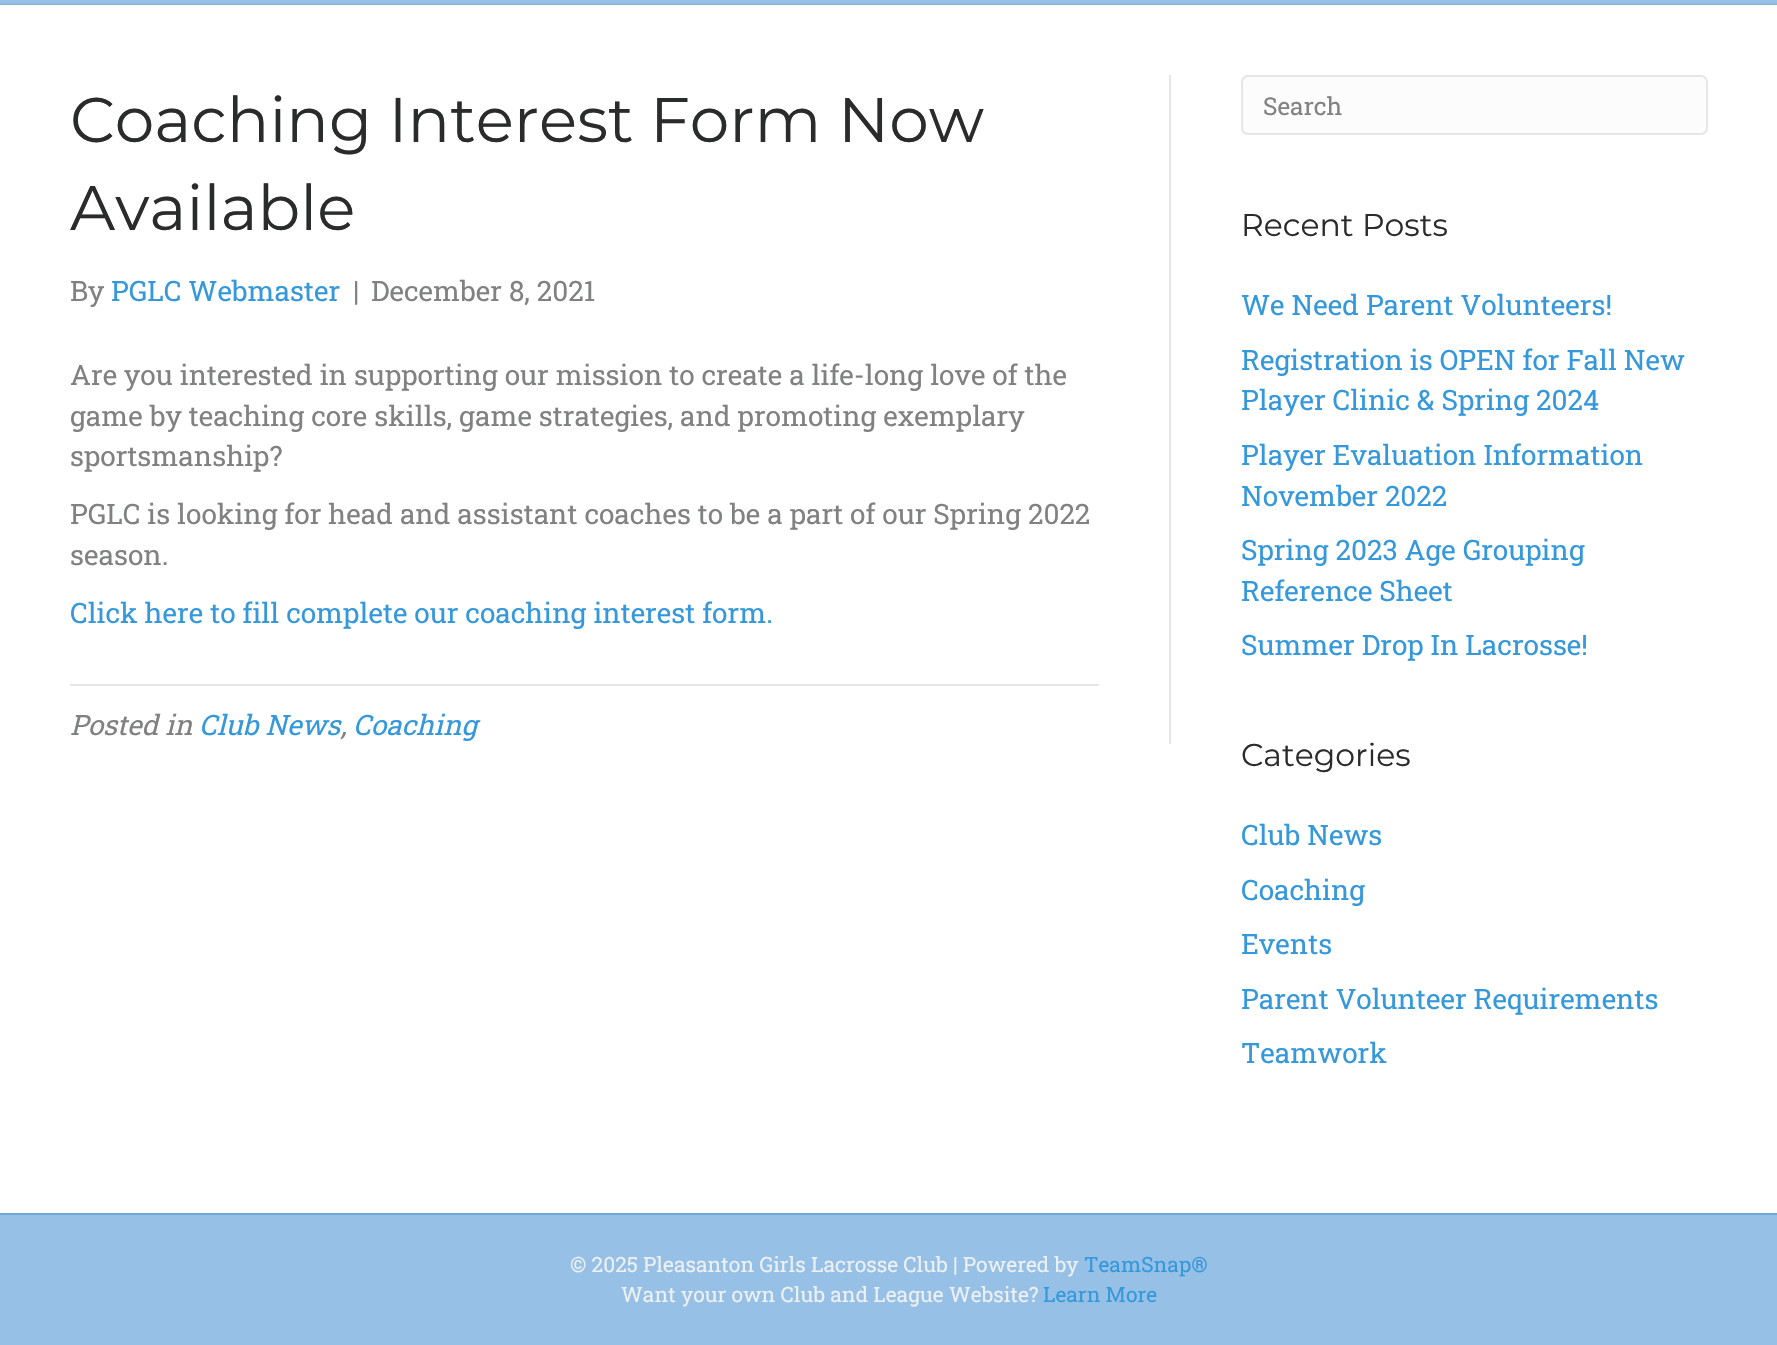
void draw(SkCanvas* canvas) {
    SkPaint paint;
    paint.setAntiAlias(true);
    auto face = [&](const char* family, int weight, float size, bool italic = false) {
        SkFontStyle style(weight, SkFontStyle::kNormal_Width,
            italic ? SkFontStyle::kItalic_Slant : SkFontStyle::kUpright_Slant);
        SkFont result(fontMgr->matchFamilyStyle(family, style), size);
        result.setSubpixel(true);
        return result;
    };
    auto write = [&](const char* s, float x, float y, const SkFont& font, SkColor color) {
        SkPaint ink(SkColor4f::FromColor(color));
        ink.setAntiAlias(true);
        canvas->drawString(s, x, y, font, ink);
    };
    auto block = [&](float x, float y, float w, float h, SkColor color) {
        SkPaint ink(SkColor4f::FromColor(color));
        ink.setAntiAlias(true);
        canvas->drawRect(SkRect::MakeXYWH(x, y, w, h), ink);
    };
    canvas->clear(SkColorSetRGB(150, 192, 230));
    block(0, 4, 1777, 1, SkColorSetRGB(136, 173, 206));
    block(0, 5, 1777, 1208, SK_ColorWHITE);
    block(1169, 75, 2, 669, SkColorSetRGB(230, 230, 230));
    auto kFont1 = face("Montserrat", 100, 63);
    write("Coaching Interest Form Now", 70, 142, kFont1, SkColorSetRGB(42, 44, 43));
    write("Available", 70, 230, kFont1, SkColorSetRGB(42, 44, 43));
    auto kFont2 = face("Roboto Slab", 400, 28);
    write("By", 70, 301, kFont2, SkColorSetRGB(127, 129, 130));
    write("PGLC Webmaster", 111, 301, kFont2, SkColorSetRGB(52, 152, 219));
    write("|", 353, 301, kFont2, SkColorSetRGB(127, 129, 130));
    write("December 8, 2021", 371, 301, kFont2, SkColorSetRGB(127, 129, 130));
    write("Are you interested in supporting our mission to create a life-long love of the", 70, 385, kFont2, SkColorSetRGB(127, 129, 130));
    write("game by teaching core skills, game strategies, and promoting exemplary", 70, 426, kFont2, SkColorSetRGB(127, 129, 130));
    write("sportsmanship?", 70, 466, kFont2, SkColorSetRGB(127, 129, 130));
    write("PGLC is looking for head and assistant coaches to be a part of our Spring 2022", 70, 524, kFont2, SkColorSetRGB(127, 129, 130));
    write("season.", 70, 565, kFont2, SkColorSetRGB(127, 129, 130));
    write("Click here to fill complete our coaching interest form.", 70, 623, kFont2, SkColorSetRGB(52, 152, 219));
    block(70, 684, 1029, 2, SkColorSetRGB(230, 230, 230));
    auto kFont3 = face("Roboto Slab", 400, 28, true);
    write("Posted in", 70, 735, kFont3, SkColorSetRGB(127, 129, 130));
    write("Club News", 199, 735, kFont3, SkColorSetRGB(52, 152, 219));
    write("Coaching", 353, 735, kFont3, SkColorSetRGB(52, 152, 219));
    write(",", 341, 735, kFont3, SkColorSetRGB(127, 129, 130));
    paint.setColor(SkColorSetRGB(252, 252, 252));
    canvas->drawRoundRect(SkRect::MakeXYWH(1242, 76, 465, 58), 6, 6, paint);
    paint.setStyle(SkPaint::kStroke_Style);
    paint.setStrokeWidth(2);
    paint.setColor(SkColorSetRGB(230, 230, 230));
    canvas->drawRoundRect(SkRect::MakeXYWH(1242, 76, 465, 58), 6, 6, paint);
    auto kFont4 = face("Roboto Slab", 400, 24.5f);
    write("Search", 1263, 115, kFont4, SkColorSetRGB(127, 129, 130));
    auto kFont5 = face("Montserrat", 100, 31.5f);
    write("Recent Posts", 1241, 236, kFont5, SkColorSetRGB(42, 44, 43));
    write("We Need Parent Volunteers!", 1241, 315, kFont2, SkColorSetRGB(52, 152, 219));
    write("Registration is OPEN for Fall New", 1241, 370, kFont2, SkColorSetRGB(52, 152, 219));
    write("Player Clinic & Spring 2024", 1241, 410, kFont2, SkColorSetRGB(52, 152, 219));
    write("Player Evaluation Information", 1241, 465, kFont2, SkColorSetRGB(52, 152, 219));
    write("November 2022", 1241, 506, kFont2, SkColorSetRGB(52, 152, 219));
    write("Spring 2023 Age Grouping", 1241, 560, kFont2, SkColorSetRGB(52, 152, 219));
    write("Reference Sheet", 1241, 601, kFont2, SkColorSetRGB(52, 152, 219));
    write("Summer Drop In Lacrosse!", 1241, 655, kFont2, SkColorSetRGB(52, 152, 219));
    write("Categories", 1241, 766, kFont5, SkColorSetRGB(42, 44, 43));
    write("Club News", 1241, 845, kFont2, SkColorSetRGB(52, 152, 219));
    write("Coaching", 1241, 900, kFont2, SkColorSetRGB(52, 152, 219));
    write("Events", 1241, 954, kFont2, SkColorSetRGB(52, 152, 219));
    write("Parent Volunteer Requirements", 1241, 1009, kFont2, SkColorSetRGB(52, 152, 219));
    write("Teamwork", 1241, 1063, kFont2, SkColorSetRGB(52, 152, 219));
    block(0, 1213, 1777, 2, SkColorSetRGB(109, 167, 220));
    auto kFont6 = face("Roboto Slab", 400, 21);
    write("© 2025 Pleasanton Girls Lacrosse Club | Powered by", 570, 1272, kFont6, SkColorSetRGB(236, 240, 241));
    write("TeamSnap®", 1084, 1272, kFont6, SkColorSetRGB(52, 152, 219));
    write("Want your own Club and League Website?", 621, 1302, kFont6, SkColorSetRGB(236, 240, 241));
    write("Learn More", 1043, 1302, kFont6, SkColorSetRGB(52, 152, 219));
}
